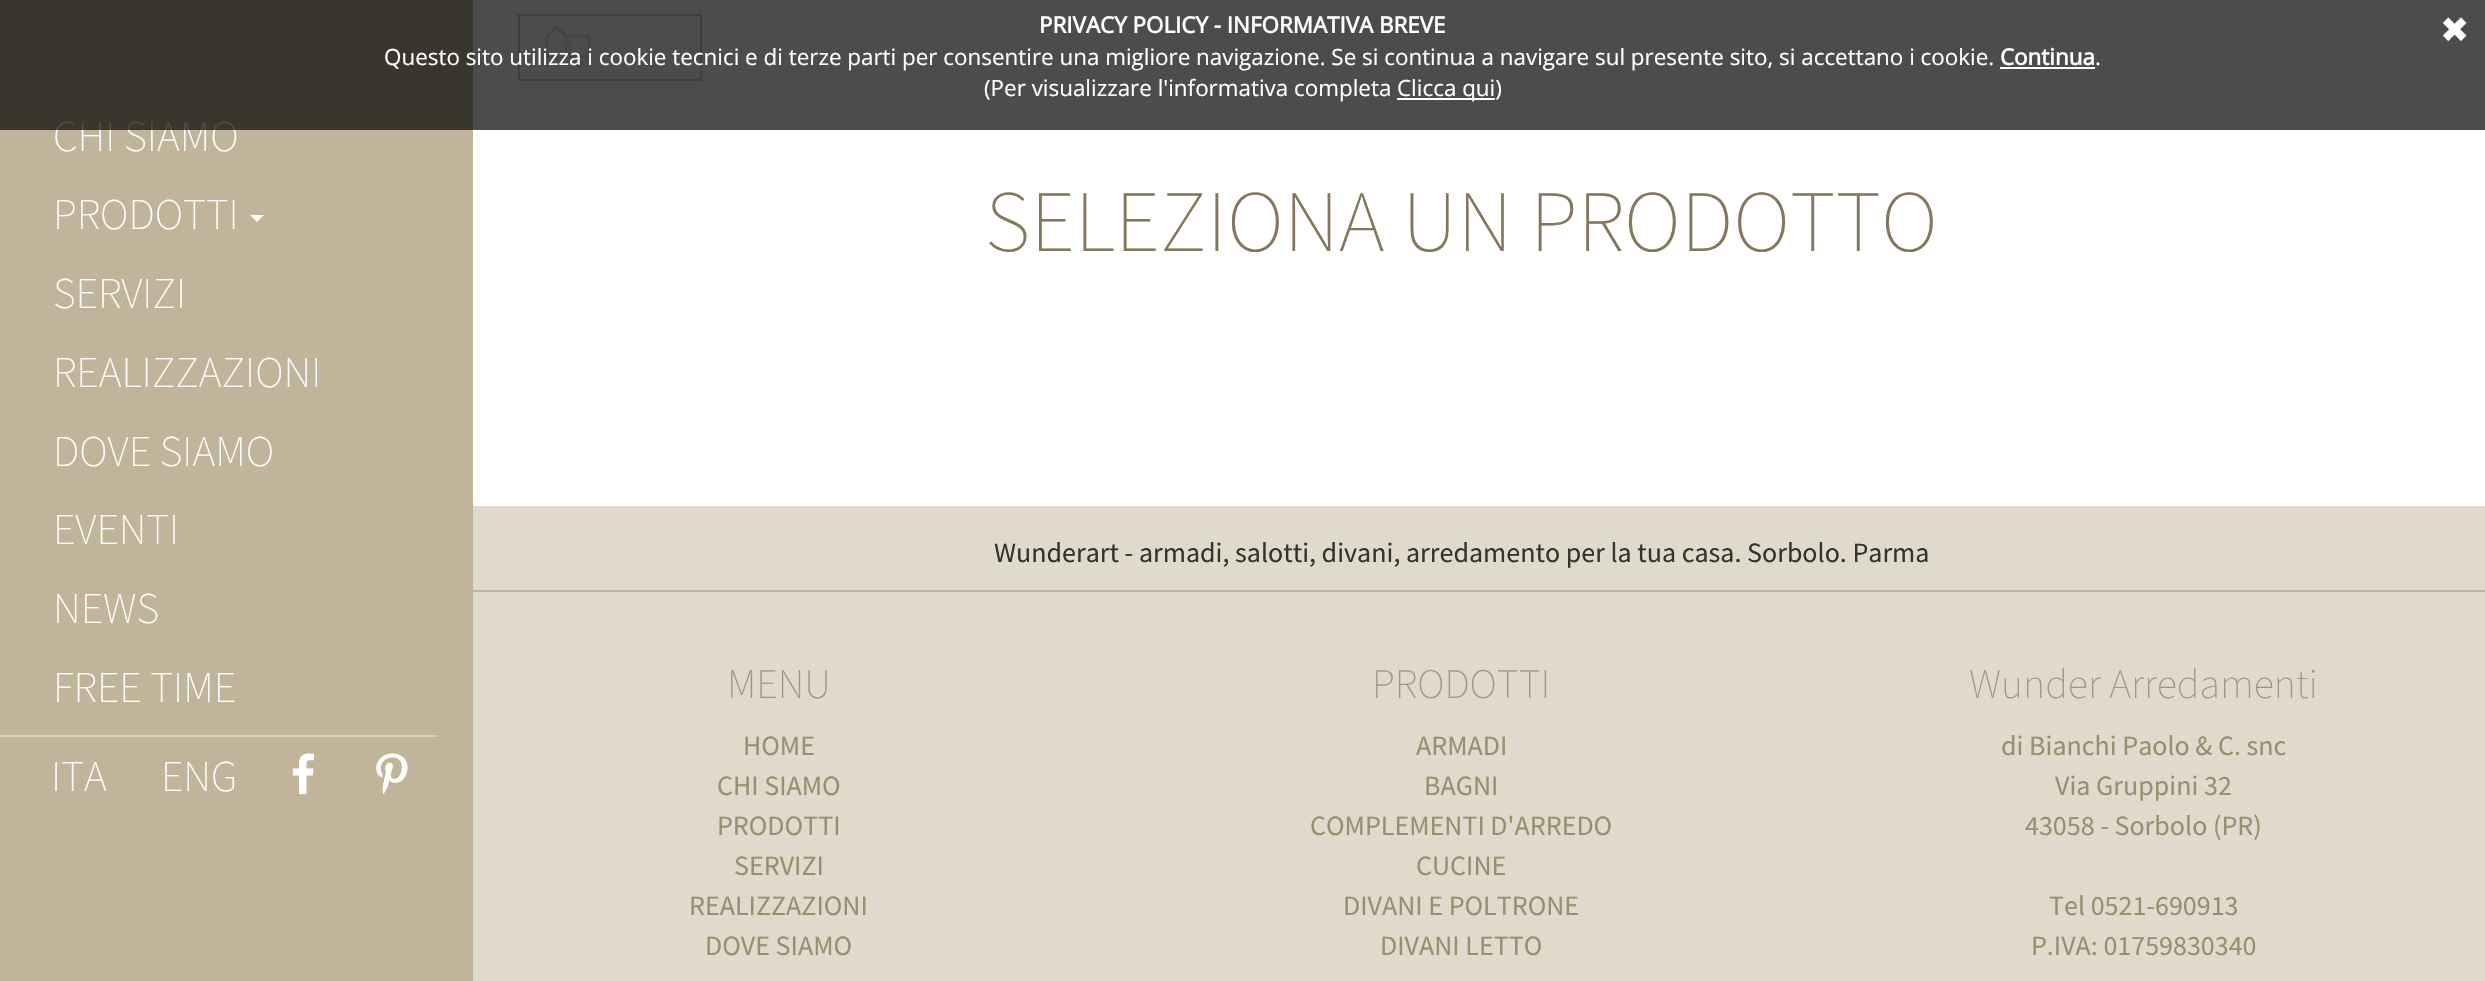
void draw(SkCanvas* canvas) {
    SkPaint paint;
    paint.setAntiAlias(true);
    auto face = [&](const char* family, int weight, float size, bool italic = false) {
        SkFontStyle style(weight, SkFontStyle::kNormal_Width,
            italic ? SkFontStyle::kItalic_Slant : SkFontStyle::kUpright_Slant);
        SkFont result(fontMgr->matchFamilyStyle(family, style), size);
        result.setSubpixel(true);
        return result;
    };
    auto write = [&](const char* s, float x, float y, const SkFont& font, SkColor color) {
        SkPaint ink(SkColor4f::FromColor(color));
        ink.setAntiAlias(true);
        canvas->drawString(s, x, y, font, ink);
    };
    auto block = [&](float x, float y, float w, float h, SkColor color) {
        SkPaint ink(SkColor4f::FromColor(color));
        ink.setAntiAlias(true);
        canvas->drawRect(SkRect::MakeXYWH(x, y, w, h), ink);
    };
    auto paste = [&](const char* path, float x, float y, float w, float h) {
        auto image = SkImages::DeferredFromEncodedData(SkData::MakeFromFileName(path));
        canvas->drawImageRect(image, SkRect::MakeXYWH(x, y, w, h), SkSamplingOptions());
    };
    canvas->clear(SK_ColorWHITE);
    paint.setStyle(SkPaint::kStroke_Style);
    paint.setStrokeWidth(2);
    paint.setColor(SkColorSetRGB(216, 208, 188));
    canvas->drawRect(SkRect::MakeXYWH(519, 15, 182, 65), paint);
    paste("pic1.png", 544, 23, 48, 46);
    block(0, 0, 473, 981, SkColorSetRGB(192, 181, 154));
    auto kFont1 = face("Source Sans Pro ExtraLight", 200, 43.75f);
    write("CHI SIAMO", 53, 151, kFont1, SK_ColorWHITE);
    block(0, 0, 2485, 130, SkColorSetARGB(179, 0, 0, 0));
    auto kFont2 = face("Open Sans", 700, 22.4f);
    write("PRIVACY POLICY - INFORMATIVA BREVE", 1039, 33, kFont2, SK_ColorWHITE);
    auto kFont3 = face("DejaVu Sans", 400, 35);
    write("✖", 2440, 42, kFont3, SK_ColorWHITE);
    auto kFont4 = face("Open Sans", 400, 22.4f);
    write("Questo sito utilizza i cookie tecnici e di terze parti per consentire una migliore navigazione. Se si continua a navigare sul presente sito, si accettano i cookie.", 384, 65, kFont4, SK_ColorWHITE);
    write("Continua", 2000, 65, kFont2, SK_ColorWHITE);
    block(2000, 67, 95, 2, SK_ColorWHITE);
    write(".", 2095, 65, kFont4, SK_ColorWHITE);
    write("(Per visualizzare l'informativa completa", 984, 96, kFont4, SK_ColorWHITE);
    block(1397, 98, 98, 2, SK_ColorWHITE);
    write("Clicca qui)", 1397, 96, kFont4, SK_ColorWHITE);
    write("PRODOTTI", 53, 229, kFont1, SK_ColorWHITE);
    paint.setStyle(SkPaint::kFill_Style);
    paint.setColor(SK_ColorWHITE);
    canvas->drawPath(SkPathBuilder().moveTo(250, 215).lineTo(264, 215).lineTo(257, 222).close().detach(), paint);
    write("SERVIZI", 53, 308, kFont1, SK_ColorWHITE);
    write("REALIZZAZIONI", 53, 387, kFont1, SK_ColorWHITE);
    write("DOVE SIAMO", 53, 466, kFont1, SK_ColorWHITE);
    write("EVENTI", 53, 544, kFont1, SK_ColorWHITE);
    write("NEWS", 53, 623, kFont1, SK_ColorWHITE);
    write("FREE TIME", 53, 702, kFont1, SK_ColorWHITE);
    block(0, 735, 438, 2, SkColorSetRGB(216, 208, 188));
    write("ITA", 51, 791, kFont1, SK_ColorWHITE);
    write("ENG", 161, 791, kFont1, SK_ColorWHITE);
    paste("pic2.png", 292, 753, 22, 42);
    paste("pic3.png", 376, 753, 32, 41);
    auto kFont5 = face("Source Sans Pro ExtraLight", 200, 87.5f);
    write("SELEZIONA UN PRODOTTO", 985, 251, kFont5, SkColorSetRGB(132, 120, 92));
    block(473, 506, 2012, 475, SkColorSetRGB(224, 218, 205));
    auto kFont6 = face("Source Sans Pro", 400, 28);
    write("Wunderart - armadi, salotti, divani, arredamento per la tua casa. Sorbolo. Parma", 994, 562, kFont6, SkColorSetRGB(51, 51, 51));
    block(473, 590, 2012, 2, SkColorSetRGB(192, 181, 154));
    auto kFont7 = face("Source Sans Pro ExtraLight", 200, 42);
    write("MENU", 727, 698, kFont7, SkColorSetRGB(160, 151, 131));
    write("HOME", 743, 755, kFont6, SkColorSetRGB(155, 142, 110));
    write("CHI SIAMO", 717, 795, kFont6, SkColorSetRGB(155, 142, 110));
    write("PRODOTTI", 717, 835, kFont6, SkColorSetRGB(155, 142, 110));
    write("SERVIZI", 734, 875, kFont6, SkColorSetRGB(155, 142, 110));
    write("REALIZZAZIONI", 689, 915, kFont6, SkColorSetRGB(155, 142, 110));
    write("DOVE SIAMO", 705, 955, kFont6, SkColorSetRGB(155, 142, 110));
    write("PRODOTTI", 1372, 698, kFont7, SkColorSetRGB(160, 151, 131));
    write("ARMADI", 1416, 755, kFont6, SkColorSetRGB(155, 142, 110));
    write("BAGNI", 1424, 795, kFont6, SkColorSetRGB(155, 142, 110));
    write("COMPLEMENTI D'ARREDO", 1310, 835, kFont6, SkColorSetRGB(155, 142, 110));
    write("CUCINE", 1416, 875, kFont6, SkColorSetRGB(155, 142, 110));
    write("DIVANI E POLTRONE", 1343, 915, kFont6, SkColorSetRGB(155, 142, 110));
    write("DIVANI LETTO", 1380, 955, kFont6, SkColorSetRGB(155, 142, 110));
    write("Wunder Arredamenti", 1969, 698, kFont7, SkColorSetRGB(160, 151, 131));
    write("di Bianchi Paolo & C. snc", 2001, 755, kFont6, SkColorSetRGB(155, 142, 110));
    write("Via Gruppini 32", 2055, 795, kFont6, SkColorSetRGB(155, 142, 110));
    write("43058 - Sorbolo (PR)", 2025, 835, kFont6, SkColorSetRGB(155, 142, 110));
    write("Tel 0521-690913", 2049, 915, kFont6, SkColorSetRGB(155, 142, 110));
    write("P.IVA: 01759830340", 2031, 955, kFont6, SkColorSetRGB(155, 142, 110));
}
